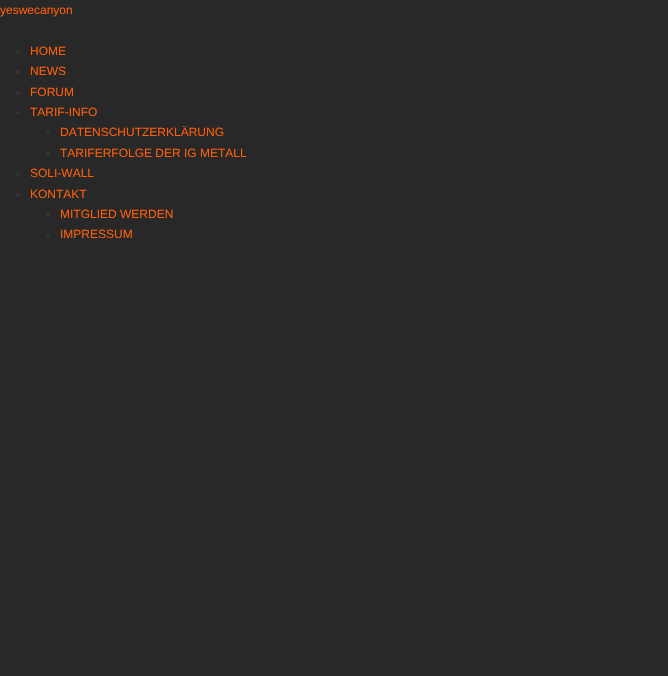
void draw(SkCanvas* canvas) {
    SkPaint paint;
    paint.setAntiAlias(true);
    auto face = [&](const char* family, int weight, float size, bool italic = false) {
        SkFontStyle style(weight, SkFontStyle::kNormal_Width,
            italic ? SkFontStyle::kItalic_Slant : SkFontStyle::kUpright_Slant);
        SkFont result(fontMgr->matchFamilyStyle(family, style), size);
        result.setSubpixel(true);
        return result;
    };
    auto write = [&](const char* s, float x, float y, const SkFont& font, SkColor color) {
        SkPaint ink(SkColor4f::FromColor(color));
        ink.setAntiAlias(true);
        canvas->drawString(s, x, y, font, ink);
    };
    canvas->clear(SkColorSetRGB(40, 40, 40));
    auto kFont1 = face("Liberation Sans", 400, 12);
    write("yeswecanyon", 0, 14, kFont1, SkColorSetRGB(254, 94, 8));
    paint.setColor(SkColorSetRGB(51, 51, 51));
    canvas->drawCircle(18, 52, 2, paint);
    write("HOME", 30, 55, kFont1, SkColorSetRGB(254, 94, 8));
    canvas->drawCircle(18, 72, 2, paint);
    write("NEWS", 30, 75, kFont1, SkColorSetRGB(254, 94, 8));
    canvas->drawCircle(18, 93, 2, paint);
    write("FORUM", 30, 96, kFont1, SkColorSetRGB(254, 94, 8));
    canvas->drawCircle(18, 113, 2, paint);
    write("TARIF-INFO", 30, 116, kFont1, SkColorSetRGB(254, 94, 8));
    canvas->drawCircle(48, 133, 2, paint);
    write("DATENSCHUTZERKLÄRUNG", 60, 136, kFont1, SkColorSetRGB(254, 94, 8));
    canvas->drawCircle(48, 154, 2, paint);
    write("TARIFERFOLGE DER IG METALL", 60, 157, kFont1, SkColorSetRGB(254, 94, 8));
    canvas->drawCircle(18, 174, 2, paint);
    write("SOLI-WALL", 30, 177, kFont1, SkColorSetRGB(254, 94, 8));
    canvas->drawCircle(18, 195, 2, paint);
    write("KONTAKT", 30, 198, kFont1, SkColorSetRGB(254, 94, 8));
    canvas->drawCircle(48, 215, 2, paint);
    write("MITGLIED WERDEN", 60, 218, kFont1, SkColorSetRGB(254, 94, 8));
    canvas->drawCircle(48, 235, 2, paint);
    write("IMPRESSUM", 60, 238, kFont1, SkColorSetRGB(254, 94, 8));
}
